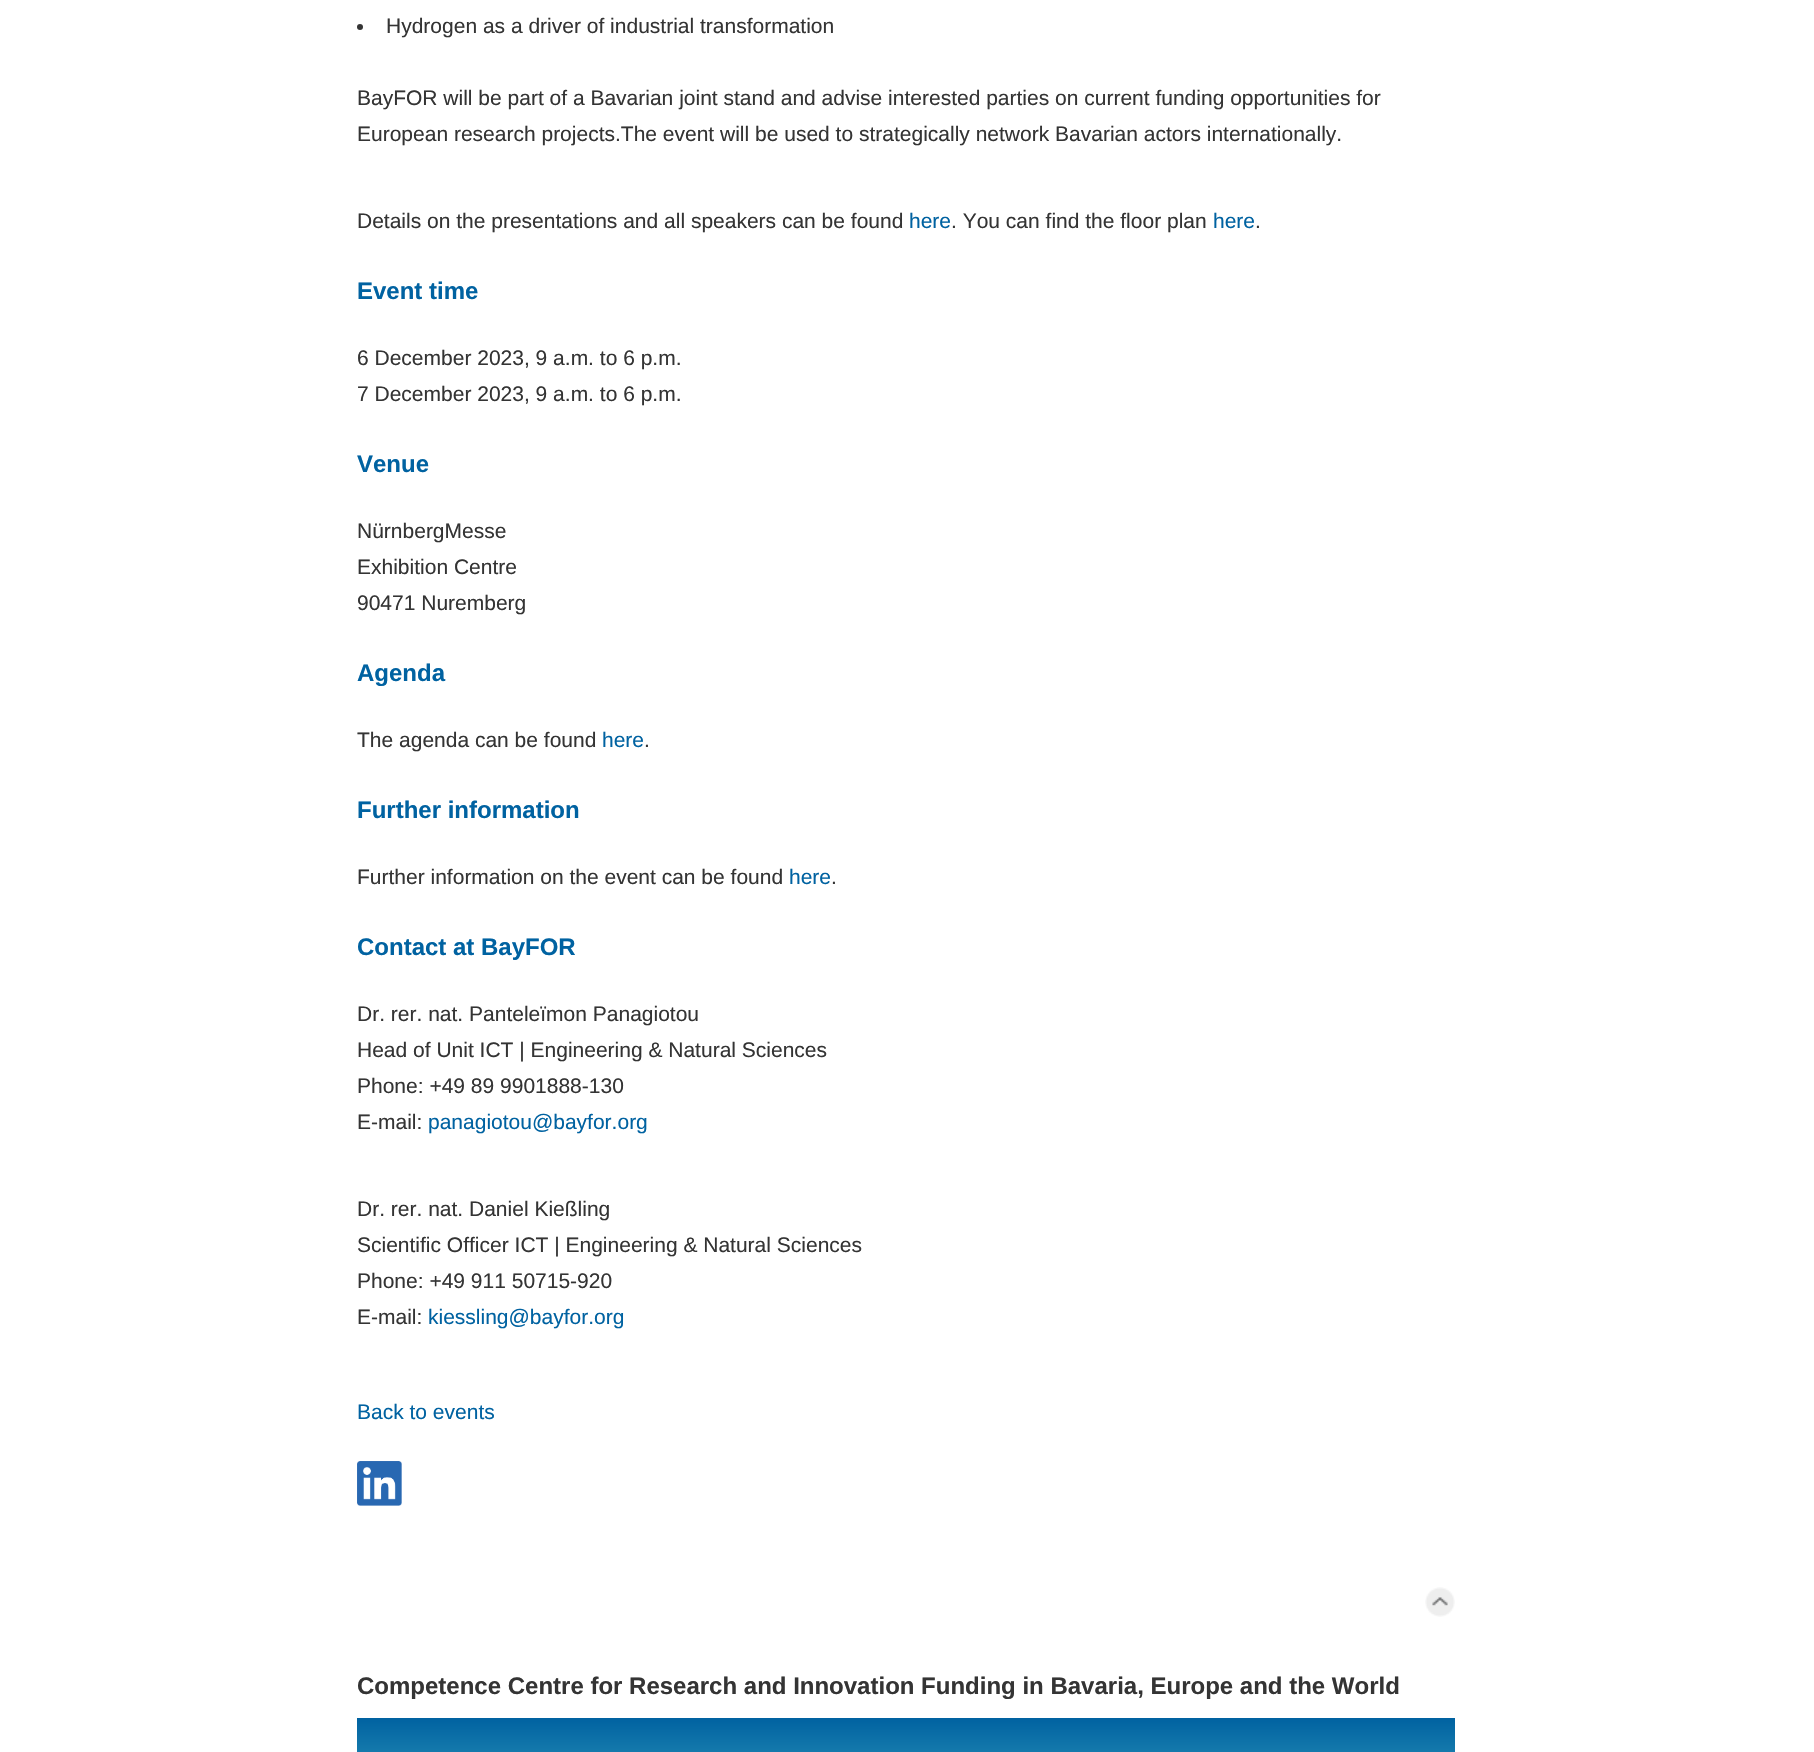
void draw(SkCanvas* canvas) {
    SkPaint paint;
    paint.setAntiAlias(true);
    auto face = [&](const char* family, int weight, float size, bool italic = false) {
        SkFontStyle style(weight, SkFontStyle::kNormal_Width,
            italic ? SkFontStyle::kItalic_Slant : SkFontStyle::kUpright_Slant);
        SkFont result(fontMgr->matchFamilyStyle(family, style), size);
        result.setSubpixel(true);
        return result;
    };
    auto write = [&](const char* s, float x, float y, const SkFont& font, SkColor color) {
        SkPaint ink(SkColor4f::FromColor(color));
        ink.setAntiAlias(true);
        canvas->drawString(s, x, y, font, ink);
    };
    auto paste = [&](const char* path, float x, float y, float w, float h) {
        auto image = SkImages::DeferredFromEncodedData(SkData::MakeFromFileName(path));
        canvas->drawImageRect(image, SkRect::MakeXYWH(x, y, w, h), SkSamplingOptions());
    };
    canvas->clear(SK_ColorWHITE);
    paint.setColor(SkColorSetRGB(52, 52, 52));
    canvas->drawCircle(360, 27, 3, paint);
    auto kFont1 = face("Liberation Sans", 400, 21);
    write("Hydrogen as a driver of industrial transformation", 386, 33, kFont1, SkColorSetRGB(52, 52, 52));
    write("BayFOR will be part of a Bavarian joint stand and advise interested parties on current funding opportunities for", 357, 105, kFont1, SkColorSetRGB(52, 52, 52));
    write("European research projects.The event will be used to strategically network Bavarian actors internationally.", 357, 141, kFont1, SkColorSetRGB(52, 52, 52));
    write("Details on the presentations and all speakers can be found", 357, 228, kFont1, SkColorSetRGB(52, 52, 52));
    write("here", 909, 228, kFont1, SkColorSetRGB(0, 98, 161));
    write(". You can find the floor plan", 951, 228, kFont1, SkColorSetRGB(52, 52, 52));
    write("here", 1213, 228, kFont1, SkColorSetRGB(0, 98, 161));
    write(".", 1255, 228, kFont1, SkColorSetRGB(52, 52, 52));
    auto kFont2 = face("Liberation Sans", 700, 24);
    write("Event time", 357, 299, kFont2, SkColorSetRGB(0, 98, 161));
    write("6 December 2023, 9 a.m. to 6 p.m.", 357, 365, kFont1, SkColorSetRGB(52, 52, 52));
    write("7 December 2023, 9 a.m. to 6 p.m.", 357, 401, kFont1, SkColorSetRGB(52, 52, 52));
    write("Venue", 357, 472, kFont2, SkColorSetRGB(0, 98, 161));
    write("NürnbergMesse", 357, 538, kFont1, SkColorSetRGB(52, 52, 52));
    write("Exhibition Centre", 357, 574, kFont1, SkColorSetRGB(52, 52, 52));
    write("90471 Nuremberg", 357, 610, kFont1, SkColorSetRGB(52, 52, 52));
    write("Agenda", 357, 681, kFont2, SkColorSetRGB(0, 98, 161));
    write("The agenda can be found", 357, 747, kFont1, SkColorSetRGB(52, 52, 52));
    write("here", 602, 747, kFont1, SkColorSetRGB(0, 98, 161));
    write(".", 644, 747, kFont1, SkColorSetRGB(52, 52, 52));
    write("Further information", 357, 818, kFont2, SkColorSetRGB(0, 98, 161));
    write("Further information on the event can be found", 357, 884, kFont1, SkColorSetRGB(52, 52, 52));
    write("here", 789, 884, kFont1, SkColorSetRGB(0, 98, 161));
    write(".", 831, 884, kFont1, SkColorSetRGB(52, 52, 52));
    write("Contact at BayFOR", 357, 955, kFont2, SkColorSetRGB(0, 98, 161));
    write("Dr. rer. nat. Panteleïmon Panagiotou", 357, 1021, kFont1, SkColorSetRGB(52, 52, 52));
    write("Head of Unit ICT | Engineering & Natural Sciences", 357, 1057, kFont1, SkColorSetRGB(52, 52, 52));
    write("Phone: +49 89 9901888-130", 357, 1093, kFont1, SkColorSetRGB(52, 52, 52));
    write("E-mail:", 357, 1129, kFont1, SkColorSetRGB(52, 52, 52));
    write("panagiotou@bayfor.org", 428, 1129, kFont1, SkColorSetRGB(0, 98, 161));
    write("Dr. rer. nat. Daniel Kießling", 357, 1216, kFont1, SkColorSetRGB(52, 52, 52));
    write("Scientific Officer ICT | Engineering & Natural Sciences", 357, 1252, kFont1, SkColorSetRGB(52, 52, 52));
    write("Phone: +49 911 50715-920", 357, 1288, kFont1, SkColorSetRGB(52, 52, 52));
    write("E-mail:", 357, 1324, kFont1, SkColorSetRGB(52, 52, 52));
    write("kiessling@bayfor.org", 428, 1324, kFont1, SkColorSetRGB(0, 98, 161));
    write("Back to events", 357, 1419, kFont1, SkColorSetRGB(0, 98, 161));
    paste("pic1.png", 357, 1461, 45, 45);
    paste("pic2.png", 1425, 1587, 30, 30);
    write("Competence Centre for Research and Innovation Funding in Bavaria, Europe and the World", 357, 1694, kFont2, SkColorSetRGB(52, 52, 52));
    {
        const SkColor colors[] = {SkColorSetRGB(0, 98, 161), SkColorSetRGB(98, 211, 213)};
        const float stops[] = {0, 1};
        const SkPoint ends[] = {{906, 1718}, {906, 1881}};
        paint.setShader(SkGradientShader::MakeLinear(ends, colors, stops, 2, SkTileMode::kClamp));
        paint.setAlpha(255);
    }
    canvas->drawRect(SkRect::MakeXYWH(357, 1718, 1098, 34), paint);
}
